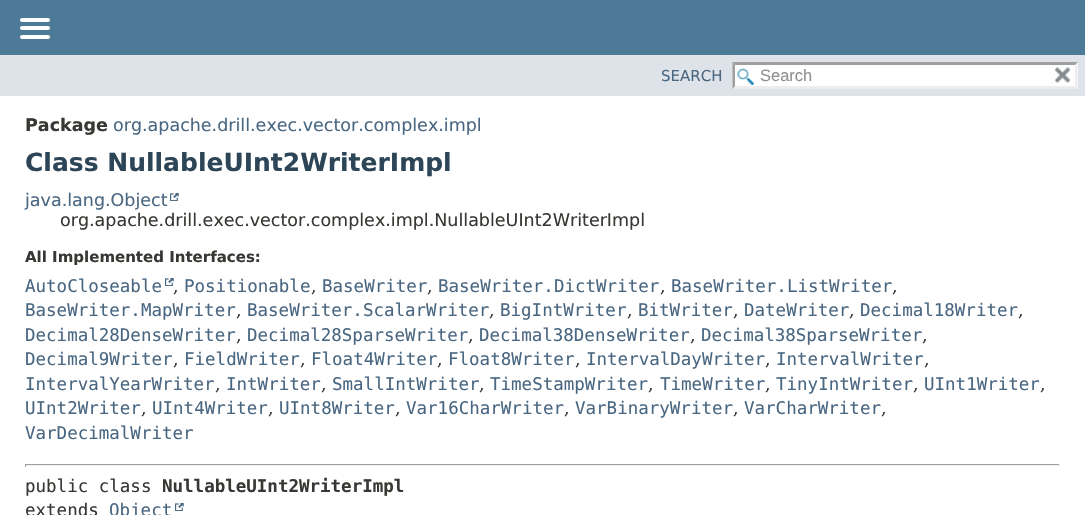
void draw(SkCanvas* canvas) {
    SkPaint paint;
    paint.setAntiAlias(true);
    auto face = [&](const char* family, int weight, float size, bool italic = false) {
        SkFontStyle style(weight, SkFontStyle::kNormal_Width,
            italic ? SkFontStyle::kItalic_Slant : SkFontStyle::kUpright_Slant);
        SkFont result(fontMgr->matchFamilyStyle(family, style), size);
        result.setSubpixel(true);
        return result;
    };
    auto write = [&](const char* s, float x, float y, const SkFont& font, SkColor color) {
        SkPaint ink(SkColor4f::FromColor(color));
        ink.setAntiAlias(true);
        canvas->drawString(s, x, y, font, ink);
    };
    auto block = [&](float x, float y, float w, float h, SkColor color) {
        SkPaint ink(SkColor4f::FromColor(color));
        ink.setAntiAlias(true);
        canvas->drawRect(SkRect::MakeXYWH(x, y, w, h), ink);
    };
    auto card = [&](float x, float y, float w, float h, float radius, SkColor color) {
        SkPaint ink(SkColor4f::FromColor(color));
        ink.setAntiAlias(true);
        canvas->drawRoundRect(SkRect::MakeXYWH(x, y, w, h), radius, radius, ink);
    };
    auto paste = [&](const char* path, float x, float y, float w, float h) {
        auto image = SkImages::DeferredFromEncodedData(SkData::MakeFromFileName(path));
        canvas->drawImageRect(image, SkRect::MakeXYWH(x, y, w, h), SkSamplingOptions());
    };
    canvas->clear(SK_ColorWHITE);
    block(0, 0, 1085, 55, SkColorSetRGB(77, 122, 151));
    card(20, 18, 30, 4, 2, SK_ColorWHITE);
    card(20, 26, 30, 4, 2, SK_ColorWHITE);
    card(20, 35, 30, 4, 2, SK_ColorWHITE);
    block(0, 55, 1085, 41, SkColorSetRGB(222, 227, 233));
    auto kFont1 = face("DejaVu Sans", 400, 15);
    write("SEARCH", 661, 81, kFont1, SkColorSetRGB(74, 103, 130));
    block(733, 63, 345, 26, SK_ColorWHITE);
    paste("pic1.png", 737, 68, 17, 17);
    paint.setColor(SkColorSetRGB(158, 158, 158));
    canvas->drawPath(SkPathBuilder().moveTo(732, 62).lineTo(1078, 62).lineTo(1075, 65).lineTo(735, 65).close().detach(), paint);
    paint.setColor(SkColorSetRGB(237, 237, 237));
    canvas->drawPath(SkPathBuilder().moveTo(1077.5f, 62.5f).lineTo(1077.5f, 89).lineTo(1075, 86).lineTo(1075, 65).close().detach(), paint);
    canvas->drawPath(SkPathBuilder().moveTo(1078, 89).lineTo(732, 89).lineTo(735, 86).lineTo(1075, 86).close().detach(), paint);
    paint.setColor(SkColorSetRGB(158, 158, 158));
    canvas->drawPath(SkPathBuilder().moveTo(732.5f, 89).lineTo(732.5f, 62.5f).lineTo(735, 65).lineTo(735, 86).close().detach(), paint);
    auto kFont2 = face("Liberation Sans", 400, 16.5f);
    write("Search", 760, 81, kFont2, SkColorSetRGB(144, 144, 144));
    paste("pic2.png", 1055, 67, 15, 16);
    auto kFont3 = face("DejaVu Sans", 700, 17.5f);
    write("Package", 25, 131, kFont3, SkColorSetRGB(53, 56, 51));
    auto kFont4 = face("DejaVu Sans", 400, 17.5f);
    write("org.apache.drill.exec.vector.complex.impl", 113, 131, kFont4, SkColorSetRGB(74, 103, 130));
    auto kFont5 = face("DejaVu Sans", 700, 25);
    write("Class NullableUInt2WriterImpl", 25, 171, kFont5, SkColorSetRGB(44, 69, 87));
    write("java.lang.Object", 25, 206, kFont4, SkColorSetRGB(74, 103, 130));
    paste("pic3.png", 170, 193, 9, 8);
    write("org.apache.drill.exec.vector.complex.impl.NullableUInt2WriterImpl", 60, 226, kFont4, SkColorSetRGB(53, 56, 51));
    auto kFont6 = face("DejaVu Sans", 700, 15);
    write("All Implemented Interfaces:", 25, 262, kFont6, SkColorSetRGB(53, 56, 51));
    auto kFont7 = face("DejaVu Sans Mono", 400, 17.5f);
    write("AutoCloseable", 25, 292, kFont7, SkColorSetRGB(74, 103, 130));
    paste("pic3.png", 165, 278, 9, 8);
    auto kFont8 = face("DejaVu Serif", 400, 17.5f);
    write(",", 173, 292, kFont8, SkColorSetRGB(53, 56, 51));
    write("Positionable", 184, 292, kFont7, SkColorSetRGB(74, 103, 130));
    write(",", 311, 292, kFont8, SkColorSetRGB(53, 56, 51));
    write("BaseWriter", 322, 292, kFont7, SkColorSetRGB(74, 103, 130));
    write(",", 427, 292, kFont8, SkColorSetRGB(53, 56, 51));
    write("BaseWriter.DictWriter", 438, 292, kFont7, SkColorSetRGB(74, 103, 130));
    write(",", 660, 292, kFont8, SkColorSetRGB(53, 56, 51));
    write("BaseWriter.ListWriter", 671, 292, kFont7, SkColorSetRGB(74, 103, 130));
    write(",", 892, 292, kFont8, SkColorSetRGB(53, 56, 51));
    write("BaseWriter.MapWriter", 25, 316, kFont7, SkColorSetRGB(74, 103, 130));
    write(",", 236, 316, kFont8, SkColorSetRGB(53, 56, 51));
    write("BaseWriter.ScalarWriter", 247, 316, kFont7, SkColorSetRGB(74, 103, 130));
    write(",", 489, 316, kFont8, SkColorSetRGB(53, 56, 51));
    write("BigIntWriter", 500, 316, kFont7, SkColorSetRGB(74, 103, 130));
    write(",", 627, 316, kFont8, SkColorSetRGB(53, 56, 51));
    write("BitWriter", 638, 316, kFont7, SkColorSetRGB(74, 103, 130));
    write(",", 733, 316, kFont8, SkColorSetRGB(53, 56, 51));
    write("DateWriter", 744, 316, kFont7, SkColorSetRGB(74, 103, 130));
    write(",", 849, 316, kFont8, SkColorSetRGB(53, 56, 51));
    write("Decimal18Writer", 860, 316, kFont7, SkColorSetRGB(74, 103, 130));
    write(",", 1018, 316, kFont8, SkColorSetRGB(53, 56, 51));
    write("Decimal28DenseWriter", 25, 341, kFont7, SkColorSetRGB(74, 103, 130));
    write(",", 236, 341, kFont8, SkColorSetRGB(53, 56, 51));
    write("Decimal28SparseWriter", 247, 341, kFont7, SkColorSetRGB(74, 103, 130));
    write(",", 468, 341, kFont8, SkColorSetRGB(53, 56, 51));
    write("Decimal38DenseWriter", 479, 341, kFont7, SkColorSetRGB(74, 103, 130));
    write(",", 690, 341, kFont8, SkColorSetRGB(53, 56, 51));
    write("Decimal38SparseWriter", 701, 341, kFont7, SkColorSetRGB(74, 103, 130));
    write(",", 922, 341, kFont8, SkColorSetRGB(53, 56, 51));
    write("Decimal9Writer", 25, 365, kFont7, SkColorSetRGB(74, 103, 130));
    write(",", 173, 365, kFont8, SkColorSetRGB(53, 56, 51));
    write("FieldWriter", 184, 365, kFont7, SkColorSetRGB(74, 103, 130));
    write(",", 300, 365, kFont8, SkColorSetRGB(53, 56, 51));
    write("Float4Writer", 311, 365, kFont7, SkColorSetRGB(74, 103, 130));
    write(",", 437, 365, kFont8, SkColorSetRGB(53, 56, 51));
    write("Float8Writer", 448, 365, kFont7, SkColorSetRGB(74, 103, 130));
    write(",", 575, 365, kFont8, SkColorSetRGB(53, 56, 51));
    write("IntervalDayWriter", 586, 365, kFont7, SkColorSetRGB(74, 103, 130));
    write(",", 765, 365, kFont8, SkColorSetRGB(53, 56, 51));
    write("IntervalWriter", 776, 365, kFont7, SkColorSetRGB(74, 103, 130));
    write(",", 924, 365, kFont8, SkColorSetRGB(53, 56, 51));
    write("IntervalYearWriter", 25, 390, kFont7, SkColorSetRGB(74, 103, 130));
    write(",", 215, 390, kFont8, SkColorSetRGB(53, 56, 51));
    write("IntWriter", 226, 390, kFont7, SkColorSetRGB(74, 103, 130));
    write(",", 321, 390, kFont8, SkColorSetRGB(53, 56, 51));
    write("SmallIntWriter", 332, 390, kFont7, SkColorSetRGB(74, 103, 130));
    write(",", 479, 390, kFont8, SkColorSetRGB(53, 56, 51));
    write("TimeStampWriter", 490, 390, kFont7, SkColorSetRGB(74, 103, 130));
    write(",", 648, 390, kFont8, SkColorSetRGB(53, 56, 51));
    write("TimeWriter", 660, 390, kFont7, SkColorSetRGB(74, 103, 130));
    write(",", 765, 390, kFont8, SkColorSetRGB(53, 56, 51));
    write("TinyIntWriter", 776, 390, kFont7, SkColorSetRGB(74, 103, 130));
    write(",", 913, 390, kFont8, SkColorSetRGB(53, 56, 51));
    write("UInt1Writer", 924, 390, kFont7, SkColorSetRGB(74, 103, 130));
    write(",", 1040, 390, kFont8, SkColorSetRGB(53, 56, 51));
    write("UInt2Writer", 25, 414, kFont7, SkColorSetRGB(74, 103, 130));
    write(",", 141, 414, kFont8, SkColorSetRGB(53, 56, 51));
    write("UInt4Writer", 152, 414, kFont7, SkColorSetRGB(74, 103, 130));
    write(",", 268, 414, kFont8, SkColorSetRGB(53, 56, 51));
    write("UInt8Writer", 279, 414, kFont7, SkColorSetRGB(74, 103, 130));
    write(",", 395, 414, kFont8, SkColorSetRGB(53, 56, 51));
    write("Var16CharWriter", 406, 414, kFont7, SkColorSetRGB(74, 103, 130));
    write(",", 564, 414, kFont8, SkColorSetRGB(53, 56, 51));
    write("VarBinaryWriter", 575, 414, kFont7, SkColorSetRGB(74, 103, 130));
    write(",", 733, 414, kFont8, SkColorSetRGB(53, 56, 51));
    write("VarCharWriter", 744, 414, kFont7, SkColorSetRGB(74, 103, 130));
    write(",", 881, 414, kFont8, SkColorSetRGB(53, 56, 51));
    write("VarDecimalWriter", 25, 439, kFont7, SkColorSetRGB(74, 103, 130));
    block(25, 464, 1035, 1, SkColorSetRGB(159, 159, 159));
    block(1059, 464, 1, 3, SkColorSetRGB(238, 238, 238));
    block(25, 465, 1035, 1, SkColorSetRGB(238, 238, 238));
    block(25, 464, 1, 3, SkColorSetRGB(159, 159, 159));
    write("public class", 25, 492, kFont7, SkColorSetRGB(53, 56, 51));
    auto kFont9 = face("DejaVu Sans Mono", 700, 17.5f);
    write("NullableUInt2WriterImpl", 162, 492, kFont9, SkColorSetRGB(53, 56, 51));
    write("extends", 25, 516, kFont7, SkColorSetRGB(53, 56, 51));
    write("Object", 109, 516, kFont7, SkColorSetRGB(74, 103, 130));
    paste("pic3.png", 175, 503, 9, 8);
}
